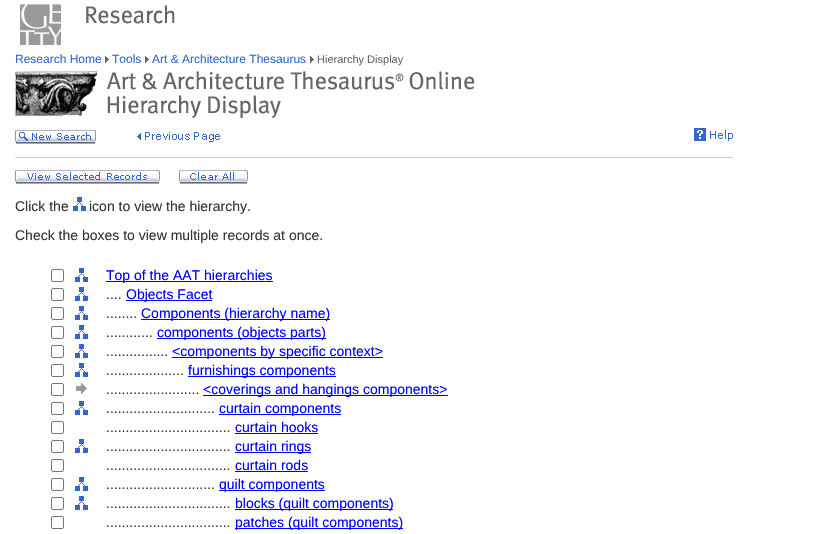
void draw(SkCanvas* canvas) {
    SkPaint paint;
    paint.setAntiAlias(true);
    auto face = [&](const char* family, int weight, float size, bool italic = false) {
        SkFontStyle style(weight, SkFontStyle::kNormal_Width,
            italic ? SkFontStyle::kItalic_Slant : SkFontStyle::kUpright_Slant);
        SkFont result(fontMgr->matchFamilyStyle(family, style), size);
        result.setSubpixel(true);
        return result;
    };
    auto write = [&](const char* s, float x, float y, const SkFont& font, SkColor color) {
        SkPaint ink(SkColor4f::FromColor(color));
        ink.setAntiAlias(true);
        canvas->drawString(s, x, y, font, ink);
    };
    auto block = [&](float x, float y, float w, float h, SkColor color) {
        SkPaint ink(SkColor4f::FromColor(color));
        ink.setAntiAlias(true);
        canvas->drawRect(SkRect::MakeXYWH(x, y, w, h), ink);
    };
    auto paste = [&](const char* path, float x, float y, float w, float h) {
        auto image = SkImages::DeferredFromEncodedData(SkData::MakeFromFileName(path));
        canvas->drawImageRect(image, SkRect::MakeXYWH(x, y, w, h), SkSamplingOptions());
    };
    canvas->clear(SK_ColorWHITE);
    paste("pic1.png", 20, 4, 41, 41);
    paste("pic2.png", 86, 5, 89, 19);
    auto kFont1 = face("Liberation Sans", 400, 12);
    write("Research Home", 15, 63, kFont1, SkColorSetRGB(51, 102, 204));
    paste("pic3.png", 105, 56, 4, 7);
    write("Tools", 112, 63, kFont1, SkColorSetRGB(51, 102, 204));
    paste("pic3.png", 145, 56, 4, 7);
    write("Art & Architecture Thesaurus", 152, 63, kFont1, SkColorSetRGB(51, 102, 204));
    paste("pic3.png", 310, 56, 4, 7);
    auto kFont2 = face("Liberation Sans", 400, 11);
    write("Hierarchy Display", 317, 63, kFont2, SkColorSetRGB(102, 102, 102));
    paste("pic4.png", 15, 71, 460, 47);
    paste("pic5.png", 15, 130, 81, 14);
    paste("pic6.png", 135, 130, 90, 13);
    paste("pic7.png", 694, 128, 39, 13);
    block(15, 157, 718, 1, SkColorSetRGB(204, 204, 204));
    paste("pic8.png", 15, 170, 145, 14);
    paste("pic9.png", 179, 170, 69, 14);
    auto kFont3 = face("Liberation Sans", 400, 14);
    write("Click the", 15, 211, kFont3, SkColorSetRGB(51, 51, 51));
    paste("pic10.png", 73, 197, 13, 14);
    write("icon to view the hierarchy.", 89, 211, kFont3, SkColorSetRGB(51, 51, 51));
    write("Check the boxes to view multiple records at once.", 15, 240, kFont3, SkColorSetRGB(51, 51, 51));
    paint.setStyle(SkPaint::kStroke_Style);
    paint.setStrokeWidth(1);
    paint.setColor(SkColorSetRGB(118, 118, 118));
    canvas->drawRoundRect(SkRect::MakeXYWH(51.5f, 269.5f, 12, 12), 1.5f, 1.5f, paint);
    paste("pic10.png", 75, 268, 13, 14);
    block(106, 281, 167, 1, SkColorSetRGB(0, 0, 255));
    write("Top of the AAT hierarchies", 106, 280, kFont3, SkColorSetRGB(0, 0, 255));
    canvas->drawRoundRect(SkRect::MakeXYWH(51.5f, 288.5f, 12, 12), 1.5f, 1.5f, paint);
    paste("pic10.png", 75, 287, 13, 14);
    write("....", 106, 299, kFont3, SkColorSetRGB(51, 51, 51));
    block(126, 300, 86, 1, SkColorSetRGB(0, 0, 255));
    write("Objects Facet", 126, 299, kFont3, SkColorSetRGB(0, 0, 255));
    canvas->drawRoundRect(SkRect::MakeXYWH(51.5f, 307.5f, 12, 12), 1.5f, 1.5f, paint);
    paste("pic10.png", 75, 306, 13, 14);
    write("........", 106, 318, kFont3, SkColorSetRGB(51, 51, 51));
    block(141, 319, 189, 1, SkColorSetRGB(0, 0, 255));
    write("Components (hierarchy name)", 141, 318, kFont3, SkColorSetRGB(0, 0, 255));
    canvas->drawRoundRect(SkRect::MakeXYWH(51.5f, 326.5f, 12, 12), 1.5f, 1.5f, paint);
    paste("pic10.png", 75, 325, 13, 14);
    write("............", 106, 337, kFont3, SkColorSetRGB(51, 51, 51));
    block(157, 338, 169, 1, SkColorSetRGB(0, 0, 255));
    write("components (objects parts)", 157, 337, kFont3, SkColorSetRGB(0, 0, 255));
    canvas->drawRoundRect(SkRect::MakeXYWH(51.5f, 345.5f, 12, 12), 1.5f, 1.5f, paint);
    paste("pic10.png", 75, 344, 13, 14);
    write("................", 106, 356, kFont3, SkColorSetRGB(51, 51, 51));
    block(172, 357, 211, 1, SkColorSetRGB(0, 0, 255));
    write("<components by specific context>", 172, 356, kFont3, SkColorSetRGB(0, 0, 255));
    canvas->drawRoundRect(SkRect::MakeXYWH(51.5f, 364.5f, 12, 12), 1.5f, 1.5f, paint);
    paste("pic10.png", 75, 363, 13, 14);
    write("....................", 106, 375, kFont3, SkColorSetRGB(51, 51, 51));
    block(188, 376, 148, 1, SkColorSetRGB(0, 0, 255));
    write("furnishings components", 188, 375, kFont3, SkColorSetRGB(0, 0, 255));
    canvas->drawRoundRect(SkRect::MakeXYWH(51.5f, 383.5f, 12, 12), 1.5f, 1.5f, paint);
    paste("pic11.png", 76, 383, 11, 11);
    write("........................", 106, 394, kFont3, SkColorSetRGB(51, 51, 51));
    block(203, 395, 245, 1, SkColorSetRGB(0, 0, 255));
    write("<coverings and hangings components>", 203, 394, kFont3, SkColorSetRGB(0, 0, 255));
    canvas->drawRoundRect(SkRect::MakeXYWH(51.5f, 402.5f, 12, 12), 1.5f, 1.5f, paint);
    paste("pic10.png", 75, 401, 13, 14);
    write("............................", 106, 413, kFont3, SkColorSetRGB(51, 51, 51));
    block(219, 414, 122, 1, SkColorSetRGB(0, 0, 255));
    write("curtain components", 219, 413, kFont3, SkColorSetRGB(0, 0, 255));
    canvas->drawRoundRect(SkRect::MakeXYWH(51.5f, 421.5f, 12, 12), 1.5f, 1.5f, paint);
    write("................................", 106, 432, kFont3, SkColorSetRGB(51, 51, 51));
    block(235, 433, 83, 1, SkColorSetRGB(0, 0, 255));
    write("curtain hooks", 235, 432, kFont3, SkColorSetRGB(0, 0, 255));
    canvas->drawRoundRect(SkRect::MakeXYWH(51.5f, 440.5f, 12, 12), 1.5f, 1.5f, paint);
    paste("pic10.png", 75, 439, 13, 14);
    write("................................", 106, 451, kFont3, SkColorSetRGB(51, 51, 51));
    block(235, 452, 76, 1, SkColorSetRGB(0, 0, 255));
    write("curtain rings", 235, 451, kFont3, SkColorSetRGB(0, 0, 255));
    canvas->drawRoundRect(SkRect::MakeXYWH(51.5f, 459.5f, 12, 12), 1.5f, 1.5f, paint);
    write("................................", 106, 470, kFont3, SkColorSetRGB(51, 51, 51));
    block(235, 471, 73, 1, SkColorSetRGB(0, 0, 255));
    write("curtain rods", 235, 470, kFont3, SkColorSetRGB(0, 0, 255));
    canvas->drawRoundRect(SkRect::MakeXYWH(51.5f, 478.5f, 12, 12), 1.5f, 1.5f, paint);
    paste("pic10.png", 75, 477, 13, 14);
    write("............................", 106, 489, kFont3, SkColorSetRGB(51, 51, 51));
    block(219, 490, 106, 1, SkColorSetRGB(0, 0, 255));
    write("quilt components", 219, 489, kFont3, SkColorSetRGB(0, 0, 255));
    canvas->drawRoundRect(SkRect::MakeXYWH(51.5f, 497.5f, 12, 12), 1.5f, 1.5f, paint);
    paste("pic10.png", 75, 496, 13, 14);
    write("................................", 106, 508, kFont3, SkColorSetRGB(51, 51, 51));
    block(235, 509, 158, 1, SkColorSetRGB(0, 0, 255));
    write("blocks (quilt components)", 235, 508, kFont3, SkColorSetRGB(0, 0, 255));
    canvas->drawRoundRect(SkRect::MakeXYWH(51.5f, 516.5f, 12, 12), 1.5f, 1.5f, paint);
    write("................................", 106, 527, kFont3, SkColorSetRGB(51, 51, 51));
    block(235, 528, 168, 1, SkColorSetRGB(0, 0, 255));
    write("patches (quilt components)", 235, 527, kFont3, SkColorSetRGB(0, 0, 255));
}
